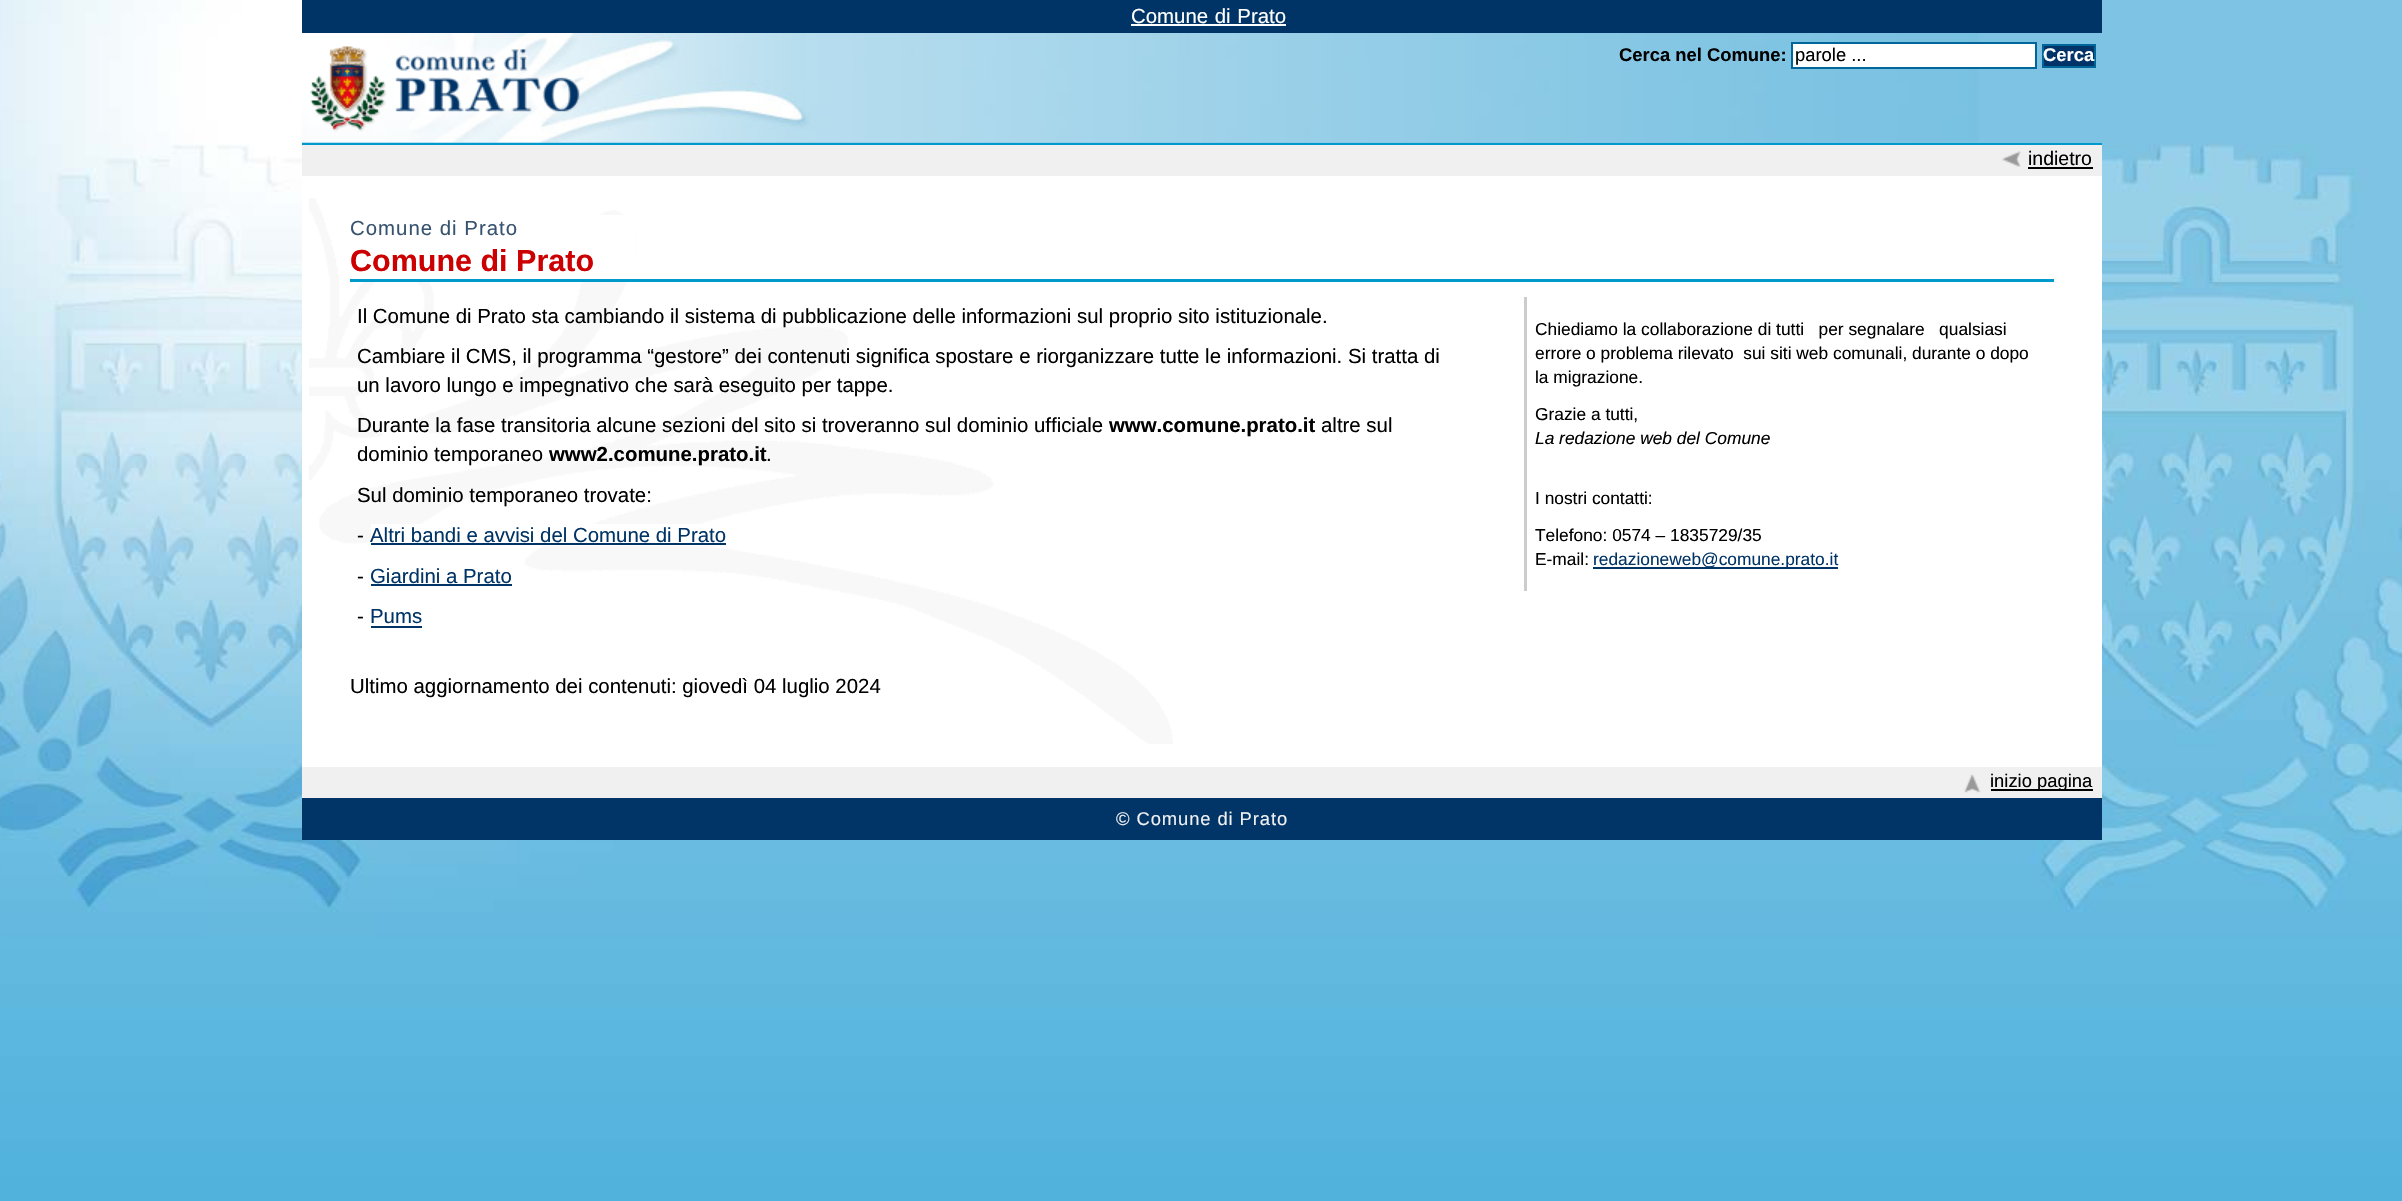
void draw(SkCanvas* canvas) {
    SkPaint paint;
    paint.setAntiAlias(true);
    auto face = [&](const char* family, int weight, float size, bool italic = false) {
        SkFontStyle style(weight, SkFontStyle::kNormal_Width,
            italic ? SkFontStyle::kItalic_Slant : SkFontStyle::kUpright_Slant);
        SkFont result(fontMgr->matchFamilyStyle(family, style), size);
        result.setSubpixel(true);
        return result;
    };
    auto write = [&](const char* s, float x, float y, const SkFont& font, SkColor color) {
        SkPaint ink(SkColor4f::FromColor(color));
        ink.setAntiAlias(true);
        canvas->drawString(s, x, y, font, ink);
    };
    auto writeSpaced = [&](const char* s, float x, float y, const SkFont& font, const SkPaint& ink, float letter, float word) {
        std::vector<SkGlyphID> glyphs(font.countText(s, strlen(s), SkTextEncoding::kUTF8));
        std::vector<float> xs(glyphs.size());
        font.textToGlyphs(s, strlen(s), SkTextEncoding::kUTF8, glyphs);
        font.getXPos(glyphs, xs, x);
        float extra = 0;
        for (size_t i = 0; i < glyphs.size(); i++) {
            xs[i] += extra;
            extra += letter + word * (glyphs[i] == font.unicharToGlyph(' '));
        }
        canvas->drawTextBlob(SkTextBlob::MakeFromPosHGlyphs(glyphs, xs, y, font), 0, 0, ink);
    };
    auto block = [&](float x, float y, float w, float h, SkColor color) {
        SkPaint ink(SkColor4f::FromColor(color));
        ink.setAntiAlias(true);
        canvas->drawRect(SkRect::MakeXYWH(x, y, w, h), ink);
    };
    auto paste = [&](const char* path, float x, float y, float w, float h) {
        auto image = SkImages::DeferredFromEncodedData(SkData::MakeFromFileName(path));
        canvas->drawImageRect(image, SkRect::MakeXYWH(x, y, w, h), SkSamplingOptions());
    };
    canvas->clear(SK_ColorWHITE);
    paste("pic1.png", 0, 0, 2402, 1201);
    block(302, 0, 1800, 33, SkColorSetRGB(0, 51, 102));
    auto kFont1 = face("Liberation Sans", 400, 20.4f);
    paint.setColor(SK_ColorWHITE);
    writeSpaced("Comune di Prato", 1131, 23, kFont1, paint, 0, 1);
    block(1131, 24, 155, 2, SK_ColorWHITE);
    block(302, 33, 827, 110, SkColorSetRGB(125, 195, 226));
    paste("pic2.png", 301, 33, 1678, 110);
    paste("pic3.png", 310, 46, 270, 86);
    auto kFont2 = face("Liberation Sans", 700, 18.4f);
    write("Cerca nel Comune:", 1619, 61, kFont2, SK_ColorBLACK);
    canvas->drawRect(SkRect::MakeXYWH(1792, 43, 244, 25), paint);
    paint.setStyle(SkPaint::kStroke_Style);
    paint.setStrokeWidth(2);
    paint.setColor(SkColorSetRGB(1, 102, 154));
    canvas->drawRect(SkRect::MakeXYWH(1792, 43, 244, 25), paint);
    auto kFont3 = face("Liberation Sans", 400, 18.4f);
    write("parole ...", 1795, 61, kFont3, SK_ColorBLACK);
    paint.setStyle(SkPaint::kFill_Style);
    paint.setColor(SkColorSetRGB(1, 51, 104));
    canvas->drawRect(SkRect::MakeXYWH(2043, 45, 52, 22), paint);
    paint.setStyle(SkPaint::kStroke_Style);
    paint.setColor(SkColorSetRGB(0, 102, 151));
    canvas->drawRect(SkRect::MakeXYWH(2043, 45, 52, 22), paint);
    write("Cerca", 2043, 61, kFont2, SK_ColorWHITE);
    block(302, 145, 1800, 31, SkColorSetRGB(240, 240, 240));
    block(302, 143, 1800, 2, SkColorSetRGB(0, 153, 204));
    paste("pic4.png", 2002, 151, 19, 16);
    auto kFont4 = face("Liberation Sans", 400, 19.5f);
    write("indietro", 2028, 165, kFont4, SK_ColorBLACK);
    block(2028, 167, 65, 2, SK_ColorBLACK);
    block(302, 176, 1800, 591, SK_ColorWHITE);
    paste("pic5.png", 309, 198, 864, 546);
    block(582, 215, 54, 28, SK_ColorWHITE);
    paint.setStyle(SkPaint::kFill_Style);
    paint.setColor(SkColorSetRGB(55, 83, 111));
    writeSpaced("Comune di Prato", 350, 235, kFont1, paint, 1, 0);
    block(368, 243, 268, 36, SK_ColorWHITE);
    block(350, 279, 1704, 3, SkColorSetRGB(0, 153, 204));
    auto kFont5 = face("Liberation Sans", 700, 30.5f);
    write("Comune di Prato", 350, 271, kFont5, SkColorSetRGB(204, 0, 0));
    write("Il Comune di Prato sta cambiando il sistema di pubblicazione delle informazioni sul proprio sito istituzionale.", 357, 323, kFont1, SK_ColorBLACK);
    write("Cambiare il CMS, il programma “gestore” dei contenuti significa spostare e riorganizzare tutte le informazioni. Si tratta di", 357, 363, kFont1, SK_ColorBLACK);
    write("un lavoro lungo e impegnativo che sarà eseguito per tappe.", 357, 392, kFont1, SK_ColorBLACK);
    write("Durante la fase transitoria alcune sezioni del sito si troveranno sul dominio ufficiale", 357, 432, kFont1, SK_ColorBLACK);
    auto kFont6 = face("Liberation Sans", 700, 20.4f);
    write("www.comune.prato.it", 1109, 432, kFont6, SK_ColorBLACK);
    write("altre sul", 1321, 432, kFont1, SK_ColorBLACK);
    write("dominio temporaneo", 357, 461, kFont1, SK_ColorBLACK);
    write("www2.comune.prato.it", 549, 461, kFont6, SK_ColorBLACK);
    write(".", 766, 461, kFont1, SK_ColorBLACK);
    write("Sul dominio temporaneo trovate:", 357, 502, kFont1, SK_ColorBLACK);
    write("-", 357, 542, kFont1, SK_ColorBLACK);
    block(371, 524, 332, 22, SK_ColorWHITE);
    write("Altri bandi e avvisi del Comune di Prato", 370, 542, kFont1, SkColorSetRGB(0, 51, 102));
    block(371, 543, 355, 2, SkColorSetRGB(0, 51, 102));
    write("-", 357, 583, kFont1, SK_ColorBLACK);
    write("Giardini a Prato", 370, 583, kFont1, SkColorSetRGB(0, 51, 102));
    block(371, 584, 141, 2, SkColorSetRGB(0, 51, 102));
    write("-", 357, 623, kFont1, SK_ColorBLACK);
    write("Pums", 370, 623, kFont1, SkColorSetRGB(0, 51, 102));
    block(371, 626, 51, 2, SkColorSetRGB(0, 51, 102));
    block(1524, 297, 3, 294, SkColorSetRGB(204, 204, 204));
    auto kFont7 = face("Liberation Sans", 400, 17.35f);
    write("Chiediamo la collaborazione di tutti   per segnalare   qualsiasi", 1535, 335, kFont7, SK_ColorBLACK);
    write("errore o problema rilevato  sui siti web comunali, durante o dopo", 1535, 359, kFont7, SK_ColorBLACK);
    write("la migrazione.", 1535, 383, kFont7, SK_ColorBLACK);
    write("Grazie a tutti,", 1535, 420, kFont7, SK_ColorBLACK);
    auto kFont8 = face("Liberation Sans", 400, 17.35f, true);
    write("La redazione web del Comune", 1535, 444, kFont8, SK_ColorBLACK);
    write("I nostri contatti:", 1535, 504, kFont7, SK_ColorBLACK);
    write("Telefono: 0574 – 1835729/35", 1535, 541, kFont7, SK_ColorBLACK);
    write("E-mail:", 1535, 565, kFont7, SK_ColorBLACK);
    block(1593, 567, 245, 2, SkColorSetRGB(0, 51, 102));
    write("redazioneweb@comune.prato.it", 1593, 565, kFont7, SkColorSetRGB(0, 51, 102));
    write("Ultimo aggiornamento dei contenuti: giovedì 04 luglio 2024", 350, 693, kFont1, SK_ColorBLACK);
    block(302, 767, 1800, 31, SkColorSetRGB(240, 240, 240));
    block(302, 798, 1800, 2, SkColorSetRGB(0, 51, 102));
    paste("pic6.png", 1964, 774, 17, 19);
    block(1991, 789, 102, 2, SK_ColorBLACK);
    write("inizio pagina", 1990, 787, kFont3, SK_ColorBLACK);
    block(302, 800, 1800, 40, SkColorSetRGB(1, 52, 103));
    paint.setColor(SkColorSetRGB(240, 240, 240));
    writeSpaced("© Comune di Prato", 1116, 825, kFont3, paint, 0.9f, 0);
}
